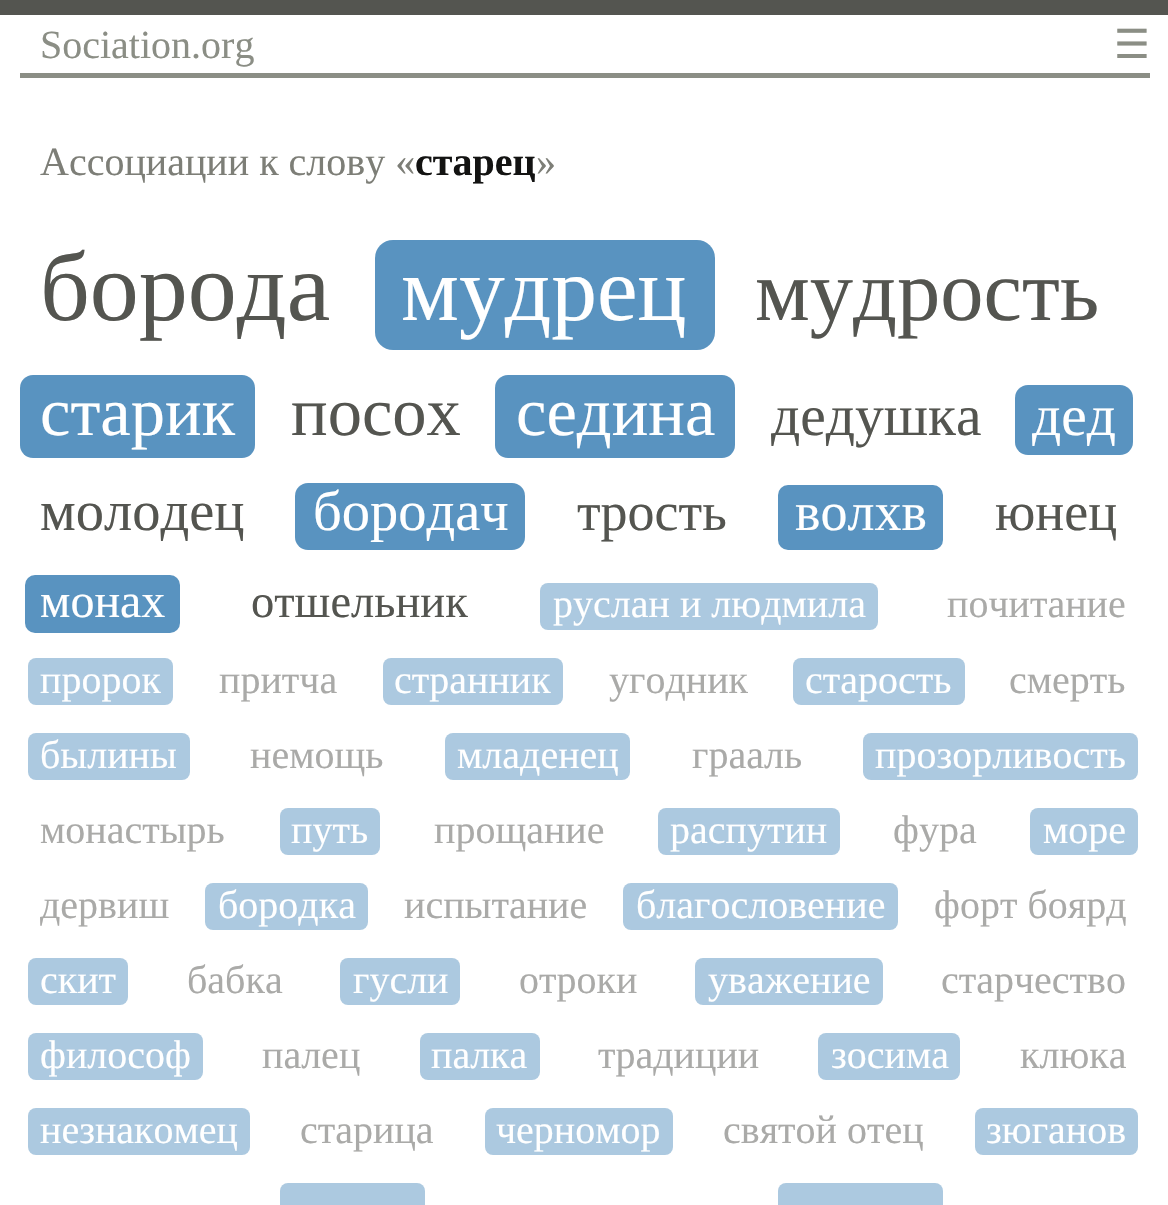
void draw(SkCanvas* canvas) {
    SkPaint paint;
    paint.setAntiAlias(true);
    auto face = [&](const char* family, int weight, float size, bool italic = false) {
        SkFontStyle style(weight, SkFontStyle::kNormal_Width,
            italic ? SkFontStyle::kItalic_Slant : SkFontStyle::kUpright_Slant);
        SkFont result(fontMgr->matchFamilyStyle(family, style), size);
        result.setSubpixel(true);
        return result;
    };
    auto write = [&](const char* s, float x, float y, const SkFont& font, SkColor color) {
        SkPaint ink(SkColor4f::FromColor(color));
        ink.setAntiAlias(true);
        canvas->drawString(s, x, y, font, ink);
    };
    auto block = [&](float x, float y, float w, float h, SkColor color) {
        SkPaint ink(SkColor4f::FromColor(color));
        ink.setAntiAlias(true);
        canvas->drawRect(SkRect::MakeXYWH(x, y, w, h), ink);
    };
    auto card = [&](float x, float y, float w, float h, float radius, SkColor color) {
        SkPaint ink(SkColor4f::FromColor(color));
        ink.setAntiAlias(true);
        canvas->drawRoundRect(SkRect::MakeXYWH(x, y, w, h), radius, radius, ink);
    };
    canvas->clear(SK_ColorWHITE);
    block(0, 0, 1168, 15, SkColorSetRGB(84, 85, 80));
    block(20, 73, 1130, 5, SkColorSetRGB(139, 142, 133));
    auto kFont1 = face("Liberation Serif", 400, 40);
    write("Sociation.org", 40, 58, kFont1, SkColorSetRGB(139, 142, 133));
    auto kFont2 = face("DejaVu Sans", 400, 40);
    write("☰", 1114, 58, kFont2, SkColorSetRGB(139, 142, 133));
    write("Ассоциации к слову «", 40, 175, kFont1, SkColorSetRGB(125, 126, 119));
    auto kFont3 = face("Liberation Serif", 700, 40);
    write("старец", 415, 175, kFont3, SkColorSetRGB(19, 19, 18));
    write("»", 536, 175, kFont1, SkColorSetRGB(125, 126, 119));
    auto kFont4 = face("Liberation Serif", 400, 98);
    write("борода", 40, 320, kFont4, SkColorSetRGB(84, 85, 80));
    card(375, 240, 340, 110, 18, SkColorSetRGB(89, 147, 192));
    auto kFont5 = face("Liberation Serif", 400, 91.5f);
    write("мудрец", 401, 320, kFont5, SK_ColorWHITE);
    auto kFont6 = face("Liberation Serif", 400, 86.5f);
    write("мудрость", 755, 320, kFont6, SkColorSetRGB(84, 85, 80));
    card(20, 375, 235, 83, 13, SkColorSetRGB(89, 147, 192));
    auto kFont7 = face("Liberation Serif", 400, 68.5f);
    write("старик", 40, 435, kFont7, SK_ColorWHITE);
    write("посох", 291, 435, kFont7, SkColorSetRGB(84, 85, 80));
    card(495, 375, 240, 83, 13, SkColorSetRGB(89, 147, 192));
    write("седина", 516, 435, kFont7, SK_ColorWHITE);
    auto kFont8 = face("Liberation Serif", 400, 57.5f);
    write("дедушка", 771, 435, kFont8, SkColorSetRGB(84, 85, 80));
    card(1015, 385, 118, 70, 13, SkColorSetRGB(89, 147, 192));
    write("дед", 1032, 435, kFont8, SK_ColorWHITE);
    auto kFont9 = face("Liberation Serif", 400, 56.5f);
    write("молодец", 40, 530, kFont9, SkColorSetRGB(84, 85, 80));
    card(295, 483, 230, 67, 13, SkColorSetRGB(89, 147, 192));
    write("бородач", 313, 530, kFont9, SK_ColorWHITE);
    auto kFont10 = face("Liberation Serif", 400, 54);
    write("трость", 577, 530, kFont10, SkColorSetRGB(84, 85, 80));
    card(778, 485, 165, 65, 10, SkColorSetRGB(89, 147, 192));
    write("волхв", 795, 530, kFont10, SK_ColorWHITE);
    write("юнец", 995, 530, kFont10, SkColorSetRGB(84, 85, 80));
    card(25, 575, 155, 58, 10, SkColorSetRGB(89, 147, 192));
    auto kFont11 = face("Liberation Serif", 400, 48);
    write("монах", 40, 617, kFont11, SK_ColorWHITE);
    auto kFont12 = face("Liberation Serif", 400, 46.5f);
    write("отшельник", 251, 617, kFont12, SkColorSetRGB(84, 85, 80));
    card(540, 583, 338, 47, 8, SkColorSetRGB(172, 201, 224));
    write("руслан и людмила", 553, 617, kFont1, SK_ColorWHITE);
    write("почитание", 947, 617, kFont1, SkColorSetRGB(170, 170, 168));
    card(28, 658, 145, 47, 8, SkColorSetRGB(172, 201, 224));
    write("пророк", 40, 693, kFont1, SK_ColorWHITE);
    write("притча", 219, 693, kFont1, SkColorSetRGB(170, 170, 168));
    card(383, 658, 180, 47, 8, SkColorSetRGB(172, 201, 224));
    write("странник", 394, 693, kFont1, SK_ColorWHITE);
    write("угодник", 609, 693, kFont1, SkColorSetRGB(170, 170, 168));
    card(793, 658, 172, 47, 8, SkColorSetRGB(172, 201, 224));
    write("старость", 805, 693, kFont1, SK_ColorWHITE);
    write("смерть", 1009, 693, kFont1, SkColorSetRGB(170, 170, 168));
    card(28, 733, 162, 47, 8, SkColorSetRGB(172, 201, 224));
    write("былины", 40, 768, kFont1, SK_ColorWHITE);
    write("немощь", 250, 768, kFont1, SkColorSetRGB(170, 170, 168));
    card(445, 733, 185, 47, 8, SkColorSetRGB(172, 201, 224));
    write("младенец", 457, 768, kFont1, SK_ColorWHITE);
    write("грааль", 692, 768, kFont1, SkColorSetRGB(170, 170, 168));
    card(863, 733, 275, 47, 8, SkColorSetRGB(172, 201, 224));
    write("прозорливость", 875, 768, kFont1, SK_ColorWHITE);
    write("монастырь", 40, 843, kFont1, SkColorSetRGB(170, 170, 168));
    card(280, 808, 100, 47, 8, SkColorSetRGB(172, 201, 224));
    write("путь", 291, 843, kFont1, SK_ColorWHITE);
    write("прощание", 434, 843, kFont1, SkColorSetRGB(170, 170, 168));
    card(658, 808, 182, 47, 8, SkColorSetRGB(172, 201, 224));
    write("распутин", 670, 843, kFont1, SK_ColorWHITE);
    write("фура", 893, 843, kFont1, SkColorSetRGB(170, 170, 168));
    card(1030, 808, 108, 47, 8, SkColorSetRGB(172, 201, 224));
    write("море", 1043, 843, kFont1, SK_ColorWHITE);
    write("дервиш", 40, 918, kFont1, SkColorSetRGB(170, 170, 168));
    card(205, 883, 163, 47, 8, SkColorSetRGB(172, 201, 224));
    write("бородка", 218, 918, kFont1, SK_ColorWHITE);
    write("испытание", 404, 918, kFont1, SkColorSetRGB(170, 170, 168));
    card(623, 883, 275, 47, 8, SkColorSetRGB(172, 201, 224));
    write("благословение", 636, 918, kFont1, SK_ColorWHITE);
    write("форт боярд", 934, 918, kFont1, SkColorSetRGB(170, 170, 168));
    card(28, 958, 100, 47, 8, SkColorSetRGB(172, 201, 224));
    write("скит", 40, 993, kFont1, SK_ColorWHITE);
    write("бабка", 187, 993, kFont1, SkColorSetRGB(170, 170, 168));
    card(340, 958, 120, 47, 8, SkColorSetRGB(172, 201, 224));
    write("гусли", 353, 993, kFont1, SK_ColorWHITE);
    write("отроки", 519, 993, kFont1, SkColorSetRGB(170, 170, 168));
    card(695, 958, 188, 47, 8, SkColorSetRGB(172, 201, 224));
    write("уважение", 708, 993, kFont1, SK_ColorWHITE);
    write("старчество", 941, 993, kFont1, SkColorSetRGB(170, 170, 168));
    card(28, 1033, 175, 47, 8, SkColorSetRGB(172, 201, 224));
    write("философ", 40, 1068, kFont1, SK_ColorWHITE);
    write("палец", 262, 1068, kFont1, SkColorSetRGB(170, 170, 168));
    card(420, 1033, 120, 47, 8, SkColorSetRGB(172, 201, 224));
    write("палка", 431, 1068, kFont1, SK_ColorWHITE);
    write("традиции", 598, 1068, kFont1, SkColorSetRGB(170, 170, 168));
    card(818, 1033, 142, 47, 8, SkColorSetRGB(172, 201, 224));
    write("зосима", 831, 1068, kFont1, SK_ColorWHITE);
    write("клюка", 1020, 1068, kFont1, SkColorSetRGB(170, 170, 168));
    card(28, 1108, 222, 47, 8, SkColorSetRGB(172, 201, 224));
    write("незнакомец", 40, 1143, kFont1, SK_ColorWHITE);
    write("старица", 300, 1143, kFont1, SkColorSetRGB(170, 170, 168));
    card(485, 1108, 188, 47, 8, SkColorSetRGB(172, 201, 224));
    write("черномор", 496, 1143, kFont1, SK_ColorWHITE);
    write("святой отец", 723, 1143, kFont1, SkColorSetRGB(170, 170, 168));
    card(975, 1108, 163, 47, 8, SkColorSetRGB(172, 201, 224));
    write("зюганов", 986, 1143, kFont1, SK_ColorWHITE);
    card(280, 1183, 145, 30, 8, SkColorSetRGB(172, 201, 224));
    card(778, 1183, 165, 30, 8, SkColorSetRGB(172, 201, 224));
}
